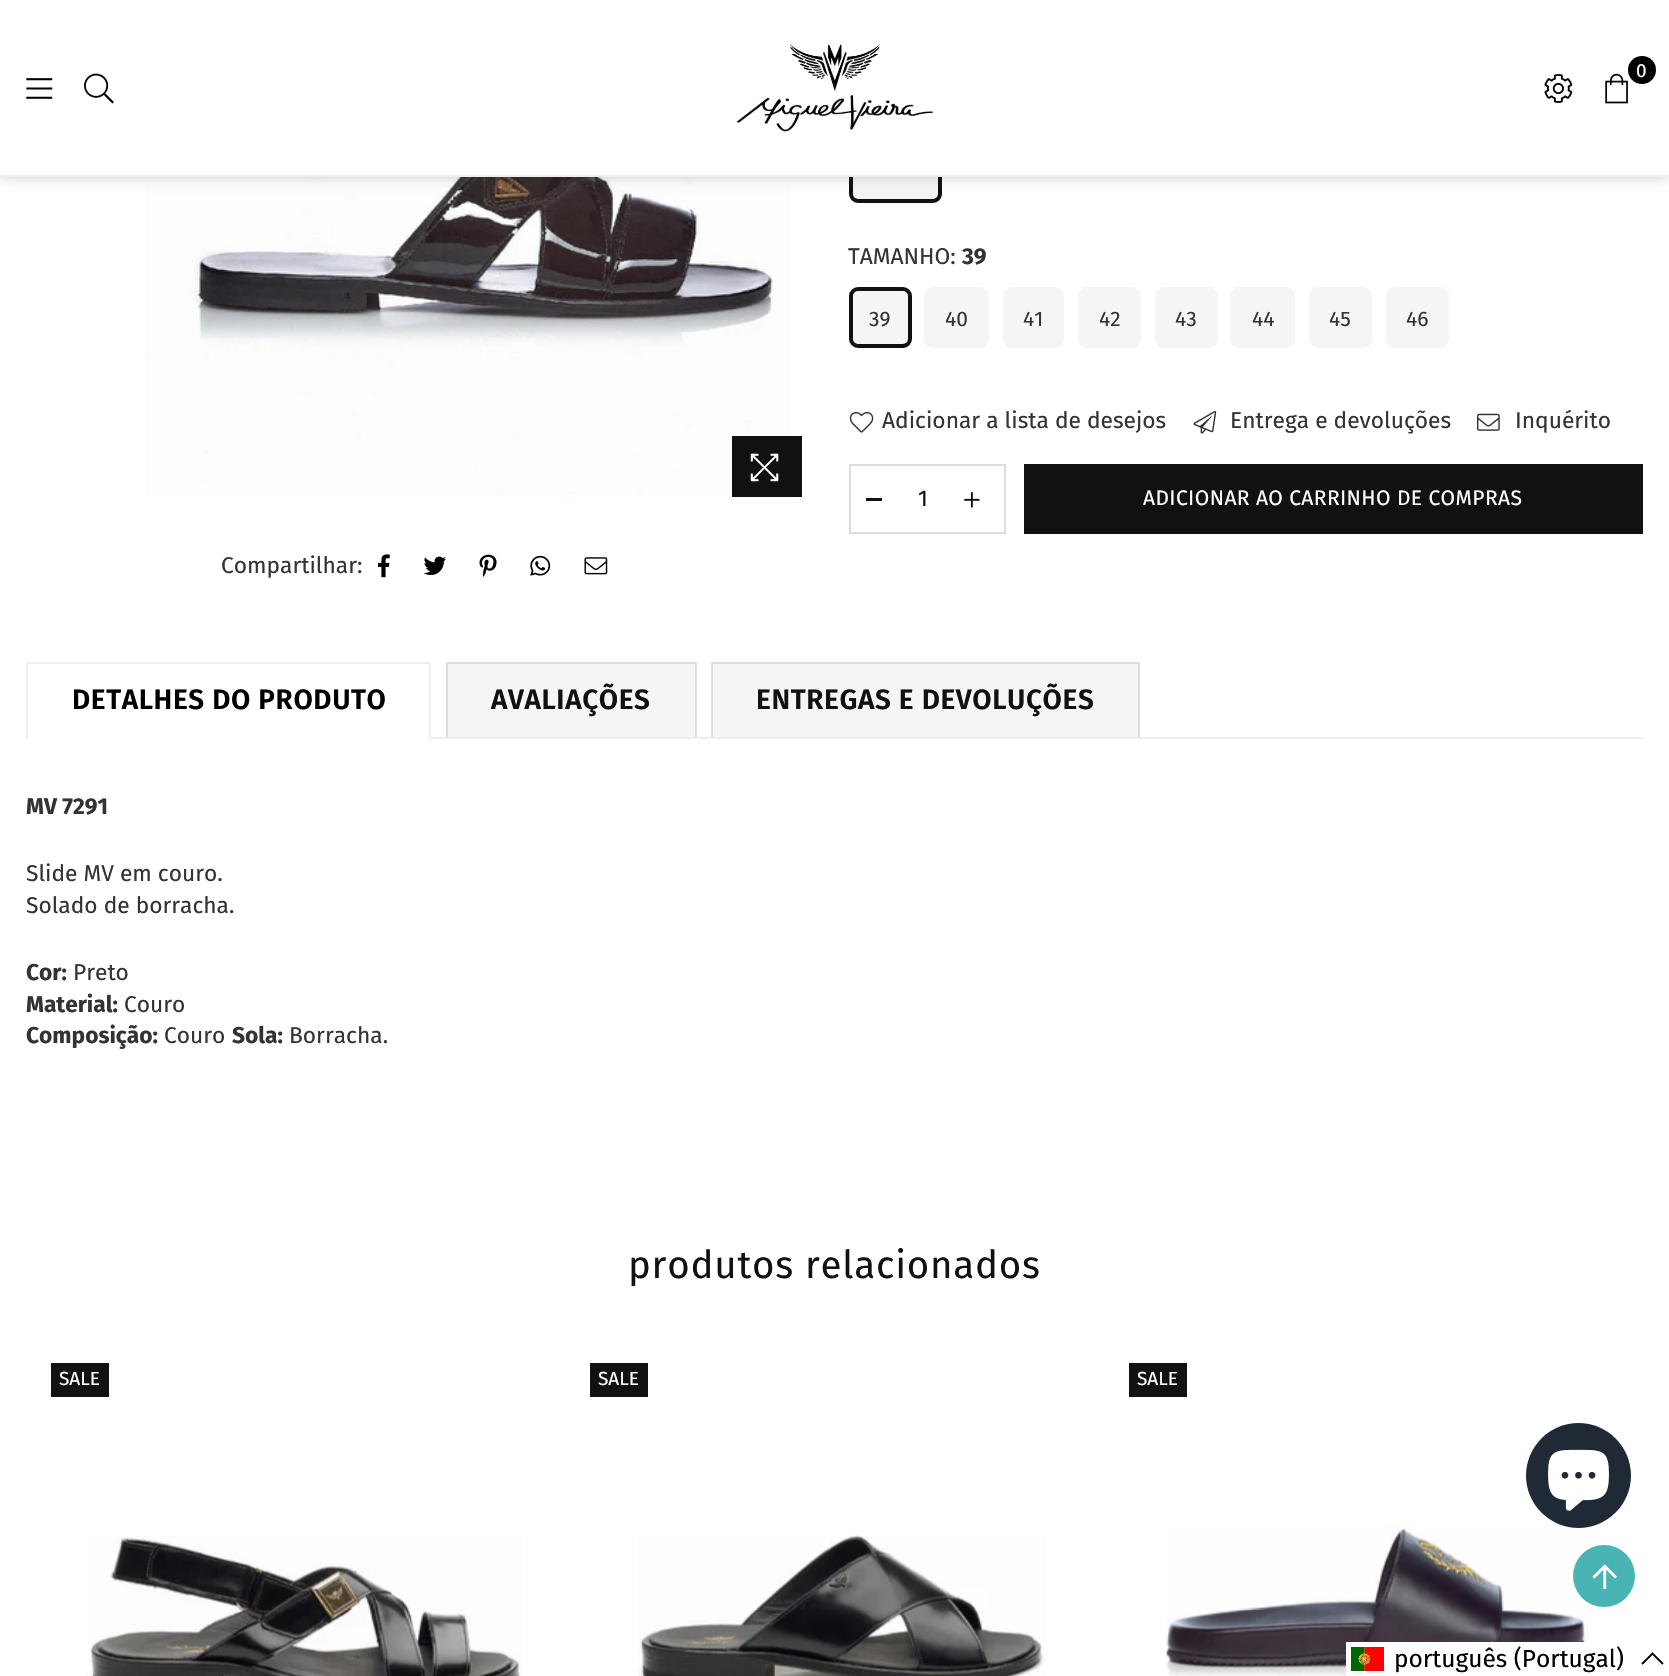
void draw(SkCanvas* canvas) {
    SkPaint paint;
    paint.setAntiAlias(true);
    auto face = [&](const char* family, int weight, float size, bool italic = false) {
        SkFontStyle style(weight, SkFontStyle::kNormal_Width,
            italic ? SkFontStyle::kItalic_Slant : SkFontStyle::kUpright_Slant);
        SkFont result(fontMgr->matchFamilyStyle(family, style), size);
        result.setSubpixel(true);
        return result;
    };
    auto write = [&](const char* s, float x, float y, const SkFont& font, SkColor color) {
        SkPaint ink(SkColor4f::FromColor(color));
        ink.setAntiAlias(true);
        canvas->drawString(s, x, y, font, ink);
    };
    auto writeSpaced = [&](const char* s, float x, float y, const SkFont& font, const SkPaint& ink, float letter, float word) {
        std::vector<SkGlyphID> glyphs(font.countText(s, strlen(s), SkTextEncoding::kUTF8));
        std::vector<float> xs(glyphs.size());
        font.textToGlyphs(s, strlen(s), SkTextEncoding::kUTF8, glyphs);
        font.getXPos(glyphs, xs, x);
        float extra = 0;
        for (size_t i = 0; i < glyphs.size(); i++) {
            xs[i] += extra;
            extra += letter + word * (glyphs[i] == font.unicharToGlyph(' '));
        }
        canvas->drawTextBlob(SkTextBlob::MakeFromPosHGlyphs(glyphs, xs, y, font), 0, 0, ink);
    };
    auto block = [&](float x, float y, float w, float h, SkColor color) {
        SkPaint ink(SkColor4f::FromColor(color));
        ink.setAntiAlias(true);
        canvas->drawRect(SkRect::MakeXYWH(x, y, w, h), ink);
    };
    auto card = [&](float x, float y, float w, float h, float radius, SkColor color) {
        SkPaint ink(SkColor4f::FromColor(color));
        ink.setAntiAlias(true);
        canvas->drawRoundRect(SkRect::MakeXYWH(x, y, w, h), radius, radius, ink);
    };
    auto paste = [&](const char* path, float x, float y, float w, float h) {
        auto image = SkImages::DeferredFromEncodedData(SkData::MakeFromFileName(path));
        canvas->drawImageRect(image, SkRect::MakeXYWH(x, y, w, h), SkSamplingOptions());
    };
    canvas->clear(SK_ColorWHITE);
    paint.setColor(SkColorSetRGB(245, 245, 245));
    canvas->drawRoundRect(SkRect::MakeXYWH(851, 144, 89, 57), 7, 7, paint);
    paint.setStyle(SkPaint::kStroke_Style);
    paint.setStrokeWidth(4);
    paint.setColor(SkColorSetRGB(17, 17, 17));
    canvas->drawRoundRect(SkRect::MakeXYWH(851, 144, 89, 57), 7, 7, paint);
    paste("pic10.png", 145, 177, 646, 321);
    paint.setStyle(SkPaint::kFill_Style);
    paint.setColor(SkColorSetARGB(51, 0, 0, 0));
    paint.setMaskFilter(SkMaskFilter::MakeBlur(kNormal_SkBlurStyle, 6));
    canvas->drawRect(SkRect::MakeXYWH(0, 0, 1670, 177), paint);
    paint.setMaskFilter(nullptr);
    block(0, 0, 1669, 175, SK_ColorWHITE);
    block(0, 175, 1669, 2, SkColorSetRGB(238, 238, 238));
    paste("pic1.png", 736, 43, 197, 89);
    paint.setColor(SK_ColorBLACK);
    canvas->drawCircle(1642, 70, 14, paint);
    auto kFont1 = face("Fira Sans", 400, 19);
    write("0", 1636, 77, kFont1, SK_ColorWHITE);
    paste("pic2.png", 1605, 73, 23, 31);
    paste("pic3.png", 1544, 74, 29, 29);
    paste("pic4.png", 26, 78, 27, 21);
    paste("pic5.png", 84, 73, 30, 31);
    auto kFont2 = face("Fira Sans", 400, 22.75f);
    write("TAMANHO:", 848, 264, kFont2, SkColorSetRGB(51, 51, 51));
    auto kFont3 = face("Fira Sans", 700, 22.75f);
    write("39", 962, 264, kFont3, SkColorSetRGB(51, 51, 51));
    paint.setColor(SkColorSetRGB(245, 245, 245));
    canvas->drawRoundRect(SkRect::MakeXYWH(851, 289, 59, 57), 7, 7, paint);
    paint.setStyle(SkPaint::kStroke_Style);
    paint.setColor(SkColorSetRGB(17, 17, 17));
    canvas->drawRoundRect(SkRect::MakeXYWH(851, 289, 59, 57), 7, 7, paint);
    auto kFont4 = face("Fira Sans", 400, 21);
    write("39", 869, 326, kFont4, SkColorSetRGB(51, 51, 51));
    card(924, 287, 65, 61, 9, SkColorSetRGB(245, 245, 245));
    write("40", 945, 326, kFont4, SkColorSetRGB(51, 51, 51));
    card(1003, 287, 61, 61, 9, SkColorSetRGB(245, 245, 245));
    write("41", 1023, 326, kFont4, SkColorSetRGB(51, 51, 51));
    card(1078, 287, 63, 61, 9, SkColorSetRGB(245, 245, 245));
    write("42", 1099, 326, kFont4, SkColorSetRGB(51, 51, 51));
    card(1155, 287, 63, 61, 9, SkColorSetRGB(245, 245, 245));
    write("43", 1175, 326, kFont4, SkColorSetRGB(51, 51, 51));
    card(1230, 287, 65, 61, 9, SkColorSetRGB(245, 245, 245));
    write("44", 1252, 326, kFont4, SkColorSetRGB(51, 51, 51));
    card(1309, 287, 63, 61, 9, SkColorSetRGB(245, 245, 245));
    write("45", 1329, 326, kFont4, SkColorSetRGB(51, 51, 51));
    card(1386, 287, 63, 61, 9, SkColorSetRGB(245, 245, 245));
    write("46", 1406, 326, kFont4, SkColorSetRGB(51, 51, 51));
    paste("pic6.png", 849, 412, 25, 21);
    write("Adicionar a lista de desejos", 882, 428, kFont2, SkColorSetRGB(51, 51, 51));
    paste("pic7.png", 1193, 410, 24, 24);
    write("Entrega e devoluções", 1230, 428, kFont2, SkColorSetRGB(51, 51, 51));
    paste("pic8.png", 1477, 413, 23, 18);
    write("Inquérito", 1515, 428, kFont2, SkColorSetRGB(51, 51, 51));
    paint.setStrokeWidth(2);
    paint.setColor(SkColorSetRGB(221, 221, 221));
    canvas->drawRect(SkRect::MakeXYWH(850, 465, 155, 68), paint);
    block(866, 498, 16, 3, SkColorSetRGB(17, 17, 17));
    write("1", 918, 506, kFont2, SkColorSetRGB(17, 17, 17));
    paste("pic9.png", 964, 492, 16, 16);
    block(1024, 464, 619, 70, SkColorSetRGB(17, 17, 17));
    paint.setStyle(SkPaint::kFill_Style);
    paint.setColor(SK_ColorWHITE);
    writeSpaced("ADICIONAR AO CARRINHO DE COMPRAS", 1143, 505, kFont4, paint, 0.4f, 0);
    block(732, 436, 70, 61, SkColorSetRGB(17, 17, 17));
    paste("pic11.png", 750, 453, 29, 29);
    write("Compartilhar:", 221, 573, kFont2, SkColorSetRGB(51, 51, 51));
    paste("pic12.png", 378, 554, 12, 24);
    paste("pic13.png", 423, 556, 24, 19);
    paste("pic14.png", 479, 554, 18, 23);
    paste("pic15.png", 530, 555, 21, 21);
    paste("pic16.png", 584, 557, 24, 18);
    block(26, 737, 1617, 2, SkColorSetRGB(238, 238, 238));
    block(26, 662, 405, 2, SkColorSetRGB(238, 238, 238));
    block(429, 662, 2, 75, SkColorSetRGB(238, 238, 238));
    block(26, 662, 2, 75, SkColorSetRGB(238, 238, 238));
    auto kFont5 = face("Fira Sans", 600, 28);
    paint.setColor(SK_ColorBLACK);
    writeSpaced("DETALHES DO PRODUTO", 72, 709, kFont5, paint, 0.6f, 0);
    block(28, 737, 401, 2, SK_ColorWHITE);
    block(448, 664, 247, 73, SkColorSetRGB(245, 245, 245));
    block(446, 662, 251, 2, SkColorSetRGB(221, 221, 221));
    block(695, 662, 2, 75, SkColorSetRGB(221, 221, 221));
    block(446, 662, 2, 75, SkColorSetRGB(221, 221, 221));
    paint.setColor(SkColorSetRGB(17, 17, 17));
    writeSpaced("AVALIAÇÕES", 491, 709, kFont5, paint, 0.6f, 0);
    block(713, 664, 425, 73, SkColorSetRGB(245, 245, 245));
    block(711, 662, 428, 2, SkColorSetRGB(221, 221, 221));
    block(1138, 662, 2, 75, SkColorSetRGB(221, 221, 221));
    block(711, 662, 2, 75, SkColorSetRGB(221, 221, 221));
    writeSpaced("ENTREGAS E DEVOLUÇÕES", 756, 709, kFont5, paint, 0.6f, 0);
    write("MV 7291", 26, 814, kFont3, SkColorSetRGB(51, 51, 51));
    write("Slide MV em couro.", 26, 881, kFont2, SkColorSetRGB(51, 51, 51));
    write("Solado de borracha.", 26, 913, kFont2, SkColorSetRGB(51, 51, 51));
    write("Cor:", 26, 980, kFont3, SkColorSetRGB(51, 51, 51));
    write("Preto", 73, 980, kFont2, SkColorSetRGB(51, 51, 51));
    write("Material:", 26, 1012, kFont3, SkColorSetRGB(51, 51, 51));
    write("Couro", 124, 1012, kFont2, SkColorSetRGB(51, 51, 51));
    write("Composição:", 26, 1043, kFont3, SkColorSetRGB(51, 51, 51));
    write("Couro", 164, 1043, kFont2, SkColorSetRGB(51, 51, 51));
    write("Sola:", 232, 1043, kFont3, SkColorSetRGB(51, 51, 51));
    write("Borracha.", 289, 1043, kFont2, SkColorSetRGB(51, 51, 51));
    auto kFont6 = face("Fira Sans", 400, 38.5f);
    writeSpaced("produtos relacionados", 628, 1278, kFont6, paint, 0.75f, 0);
    block(51, 1363, 58, 34, SkColorSetRGB(17, 17, 17));
    write("SALE", 59, 1385, kFont1, SK_ColorWHITE);
    paste("pic17.png", 87, 1535, 436, 141);
    block(590, 1363, 58, 34, SkColorSetRGB(17, 17, 17));
    write("SALE", 598, 1385, kFont1, SK_ColorWHITE);
    paste("pic18.png", 637, 1535, 408, 141);
    block(1129, 1363, 58, 34, SkColorSetRGB(17, 17, 17));
    write("SALE", 1137, 1385, kFont1, SK_ColorWHITE);
    paste("pic19.png", 1165, 1524, 425, 152);
    paint.setColor(SkColorSetRGB(32, 42, 54));
    canvas->drawCircle(1578.5f, 1475.5f, 52.5f, paint);
    paste("pic20.png", 1548, 1449, 61, 62);
    paint.setColor(SkColorSetRGB(74, 180, 180));
    canvas->drawCircle(1604, 1576, 31, paint);
    paste("pic21.png", 1592, 1564, 25, 25);
    block(1346, 1642, 244, 34, SK_ColorWHITE);
    paste("pic22.png", 1351, 1647, 33, 24);
    auto kFont7 = face("Fira Sans", 400, 24.5f);
    write("português (Portugal)", 1394, 1667, kFont7, SK_ColorBLACK);
    paint.setStyle(SkPaint::kStroke_Style);
    paint.setStrokeWidth(1.8f);
    paint.setColor(SK_ColorBLACK);
    canvas->drawPath(SkPathBuilder().moveTo(1663, 1664).lineTo(1652.5f, 1653.5f).lineTo(1642, 1664).detach(), paint);
}
